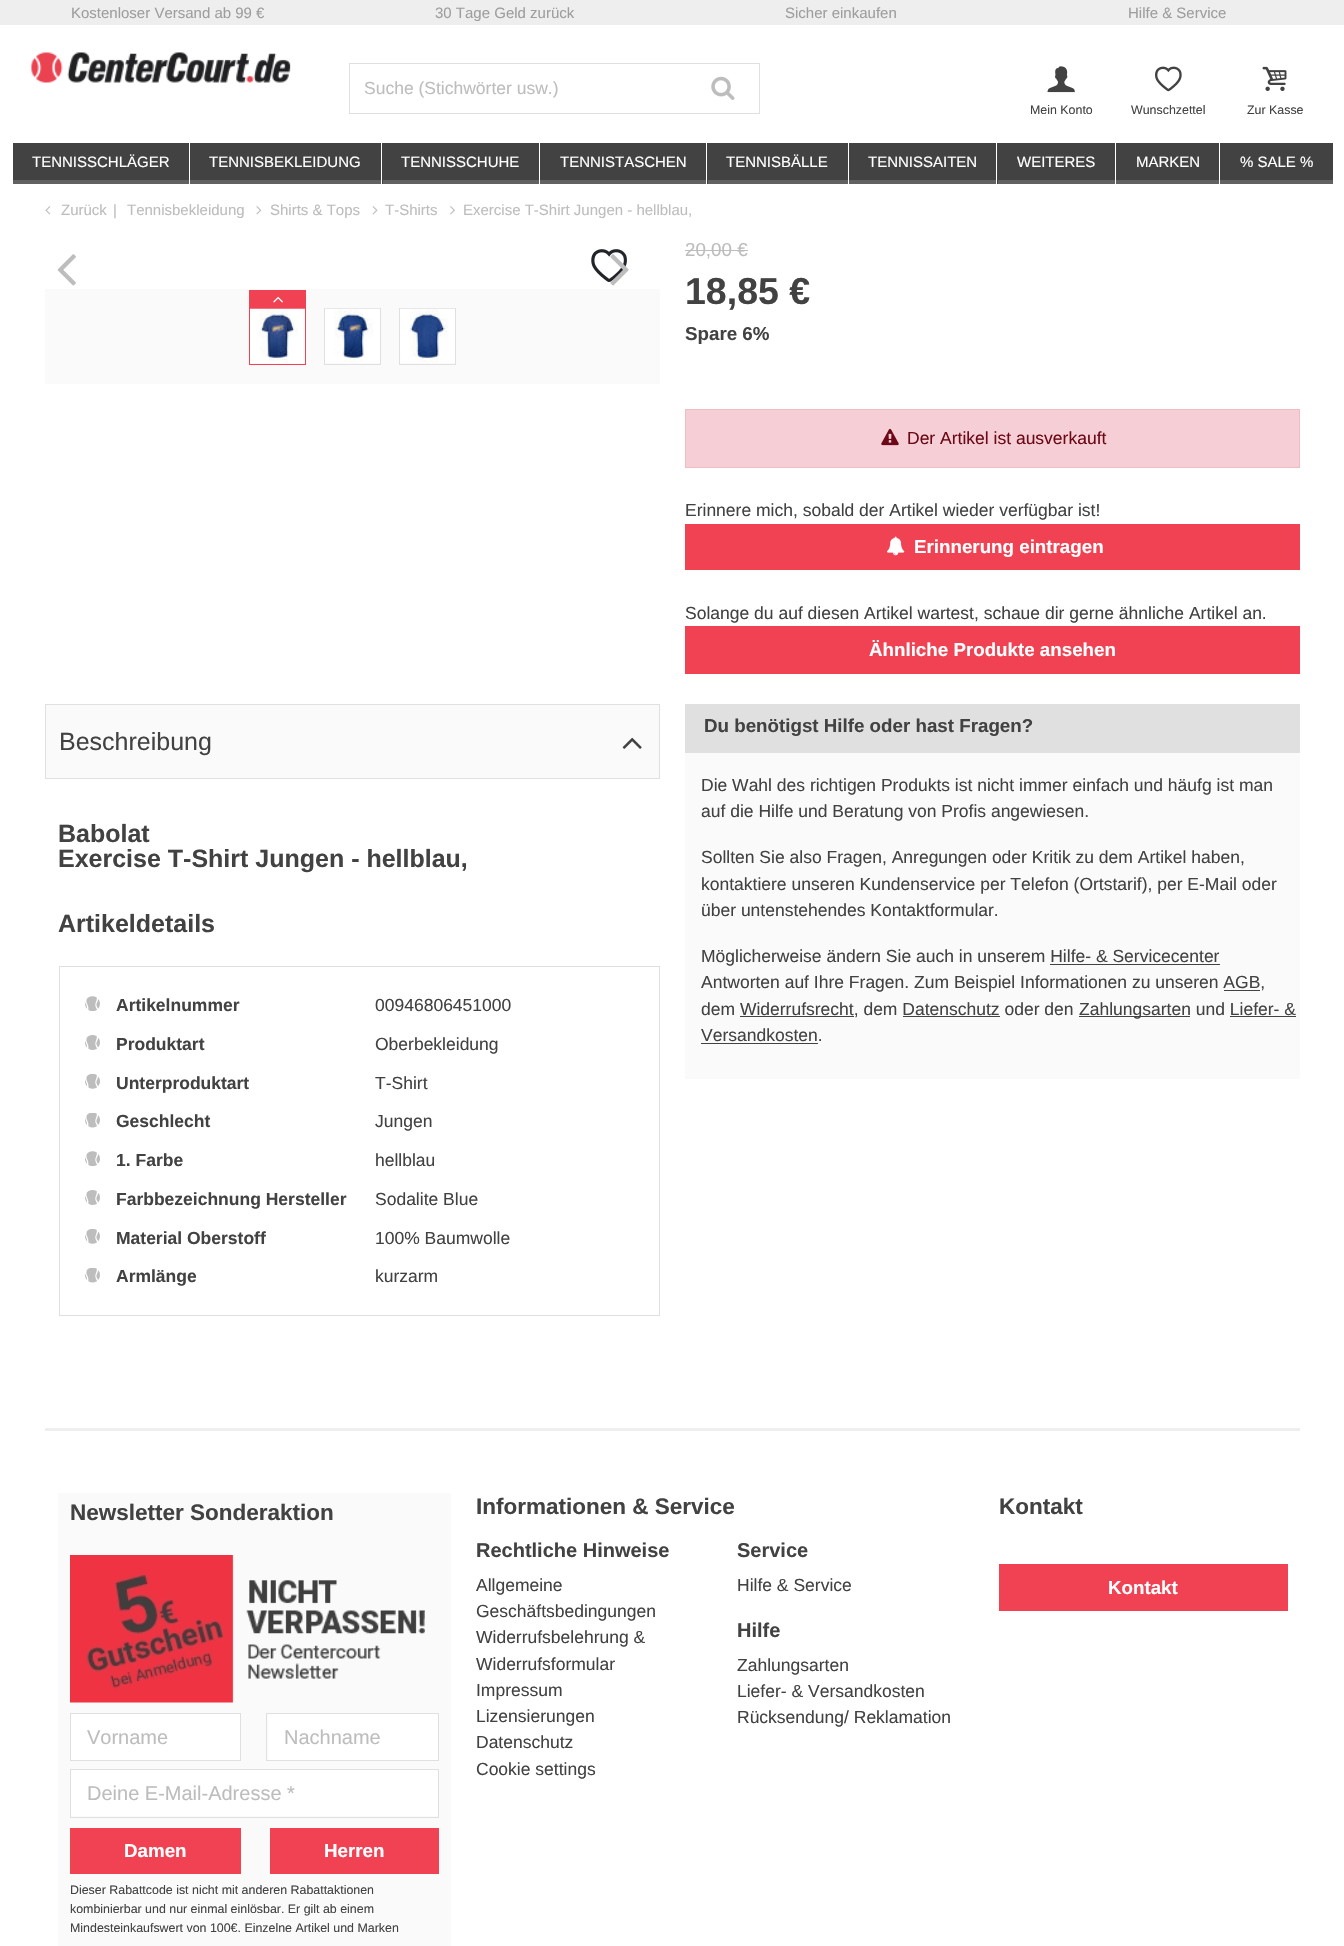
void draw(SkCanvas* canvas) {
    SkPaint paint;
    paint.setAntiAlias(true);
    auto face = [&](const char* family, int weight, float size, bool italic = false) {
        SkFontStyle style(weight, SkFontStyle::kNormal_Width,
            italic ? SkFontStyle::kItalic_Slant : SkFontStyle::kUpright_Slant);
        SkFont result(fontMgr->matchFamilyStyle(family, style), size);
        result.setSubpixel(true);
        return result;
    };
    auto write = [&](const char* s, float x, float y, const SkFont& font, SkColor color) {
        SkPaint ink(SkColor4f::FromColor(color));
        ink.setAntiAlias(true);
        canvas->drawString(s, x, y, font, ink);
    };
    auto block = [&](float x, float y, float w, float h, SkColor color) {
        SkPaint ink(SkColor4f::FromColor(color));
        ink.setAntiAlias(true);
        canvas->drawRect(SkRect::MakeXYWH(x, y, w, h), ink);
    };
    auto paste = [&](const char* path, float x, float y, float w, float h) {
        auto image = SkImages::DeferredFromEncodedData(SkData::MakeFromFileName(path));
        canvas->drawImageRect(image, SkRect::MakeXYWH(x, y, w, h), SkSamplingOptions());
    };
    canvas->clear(SK_ColorWHITE);
    block(0, 0, 1344, 25, SkColorSetRGB(238, 238, 238));
    auto kFont1 = face("Liberation Sans", 400, 15);
    write("Kostenloser Versand ab 99 €", 71, 18, kFont1, SkColorSetRGB(158, 158, 158));
    write("30 Tage Geld zurück", 435, 18, kFont1, SkColorSetRGB(158, 158, 158));
    write("Sicher einkaufen", 785, 18, kFont1, SkColorSetRGB(158, 158, 158));
    write("Hilfe & Service", 1128, 18, kFont1, SkColorSetRGB(158, 158, 158));
    paste("pic1.png", 31, 52, 260, 31);
    paint.setStyle(SkPaint::kStroke_Style);
    paint.setStrokeWidth(1);
    paint.setColor(SkColorSetRGB(224, 224, 224));
    canvas->drawRect(SkRect::MakeXYWH(349.5f, 63.5f, 410, 50), paint);
    auto kFont2 = face("Liberation Sans", 400, 17.5f);
    write("Suche (Stichwörter usw.)", 364, 94, kFont2, SkColorSetRGB(189, 189, 189));
    paste("pic2.png", 711, 76, 24, 24);
    paste("pic3.png", 1047, 66, 28, 27);
    auto kFont3 = face("Liberation Sans", 400, 12.4f);
    write("Mein Konto", 1030, 114, kFont3, SkColorSetRGB(66, 66, 66));
    paste("pic4.png", 1155, 66, 27, 26);
    write("Wunschzettel", 1131, 114, kFont3, SkColorSetRGB(66, 66, 66));
    paste("pic5.png", 1262, 66, 25, 25);
    write("Zur Kasse", 1247, 114, kFont3, SkColorSetRGB(66, 66, 66));
    block(13, 143, 176, 37, SkColorSetRGB(66, 66, 66));
    block(13, 180, 176, 4, SkColorSetRGB(97, 97, 97));
    write("TENNISSCHLÄGER", 32, 167, kFont1, SK_ColorWHITE);
    block(190, 143, 191, 37, SkColorSetRGB(66, 66, 66));
    block(190, 180, 191, 4, SkColorSetRGB(97, 97, 97));
    write("TENNISBEKLEIDUNG", 209, 167, kFont1, SK_ColorWHITE);
    block(382, 143, 157, 41, SkColorSetRGB(66, 66, 66));
    block(383, 180, 156, 4, SkColorSetRGB(97, 97, 97));
    write("TENNISSCHUHE", 401, 167, kFont1, SK_ColorWHITE);
    block(540, 143, 166, 37, SkColorSetRGB(66, 66, 66));
    block(540, 180, 166, 4, SkColorSetRGB(97, 97, 97));
    write("TENNISTASCHEN", 560, 167, kFont1, SK_ColorWHITE);
    block(707, 143, 141, 41, SkColorSetRGB(66, 66, 66));
    block(708, 180, 140, 4, SkColorSetRGB(97, 97, 97));
    write("TENNISBÄLLE", 726, 167, kFont1, SK_ColorWHITE);
    block(849, 143, 147, 37, SkColorSetRGB(66, 66, 66));
    block(849, 180, 147, 4, SkColorSetRGB(97, 97, 97));
    write("TENNISSAITEN", 868, 167, kFont1, SK_ColorWHITE);
    block(997, 143, 118, 41, SkColorSetRGB(66, 66, 66));
    block(998, 180, 117, 4, SkColorSetRGB(97, 97, 97));
    write("WEITERES", 1017, 167, kFont1, SK_ColorWHITE);
    block(1116, 143, 103, 37, SkColorSetRGB(66, 66, 66));
    block(1116, 180, 103, 4, SkColorSetRGB(97, 97, 97));
    write("MARKEN", 1136, 167, kFont1, SK_ColorWHITE);
    block(1220, 143, 113, 37, SkColorSetRGB(66, 66, 66));
    block(1220, 180, 113, 4, SkColorSetRGB(97, 97, 97));
    write("% SALE %", 1240, 167, kFont1, SK_ColorWHITE);
    paste("pic6.png", 45, 206, 6, 9);
    write("Zurück", 61, 215, kFont1, SkColorSetRGB(189, 189, 189));
    write("|", 113, 215, kFont1, SkColorSetRGB(189, 189, 189));
    write("Tennisbekleidung", 127, 215, kFont1, SkColorSetRGB(189, 189, 189));
    paste("pic7.png", 256, 206, 6, 9);
    write("Shirts & Tops", 270, 215, kFont1, SkColorSetRGB(189, 189, 189));
    paste("pic8.png", 372, 206, 6, 9);
    write("T-Shirts", 385, 215, kFont1, SkColorSetRGB(189, 189, 189));
    paste("pic9.png", 450, 206, 5, 9);
    write("Exercise T-Shirt Jungen - hellblau,", 463, 215, kFont1, SkColorSetRGB(189, 189, 189));
    paste("pic10.png", 591, 249, 36, 34);
    paste("pic11.png", 57, 254, 19, 32);
    paste("pic12.png", 610, 254, 19, 32);
    block(45, 289, 615, 95, SkColorSetRGB(250, 250, 250));
    paint.setColor(SkColorSetRGB(240, 66, 82));
    canvas->drawRect(SkRect::MakeXYWH(249.5f, 308.5f, 56, 56), paint);
    block(249, 290, 57, 18, SkColorSetRGB(240, 66, 82));
    paste("pic13.png", 273, 296, 10, 7);
    paste("pic14.png", 250, 308, 55, 55);
    paint.setColor(SkColorSetRGB(224, 224, 224));
    canvas->drawRect(SkRect::MakeXYWH(324.5f, 308.5f, 56, 56), paint);
    paste("pic15.png", 325, 308, 55, 55);
    canvas->drawRect(SkRect::MakeXYWH(399.5f, 308.5f, 56, 56), paint);
    paste("pic16.png", 400, 308, 55, 55);
    auto kFont4 = face("Liberation Sans", 400, 18.75f);
    write("20,00 €", 685, 256, kFont4, SkColorSetRGB(189, 189, 189));
    block(685, 250, 63, 1, SkColorSetRGB(189, 189, 189));
    auto kFont5 = face("Liberation Sans", 700, 37.5f);
    write("18,85 €", 685, 304, kFont5, SkColorSetRGB(66, 66, 66));
    auto kFont6 = face("Liberation Sans", 700, 18.75f);
    write("Spare 6%", 685, 340, kFont6, SkColorSetRGB(66, 66, 66));
    paint.setStyle(SkPaint::kFill_Style);
    paint.setColor(SkColorSetRGB(245, 207, 213));
    canvas->drawRect(SkRect::MakeXYWH(685.5f, 409.5f, 614, 58), paint);
    paint.setStyle(SkPaint::kStroke_Style);
    paint.setColor(SkColorSetRGB(242, 188, 196));
    canvas->drawRect(SkRect::MakeXYWH(685.5f, 409.5f, 614, 58), paint);
    paste("pic17.png", 881, 428, 18, 18);
    write("Der Artikel ist ausverkauft", 907, 444, kFont2, SkColorSetRGB(108, 8, 23));
    write("Erinnere mich, sobald der Artikel wieder verfügbar ist!", 685, 516, kFont2, SkColorSetRGB(66, 66, 66));
    block(685, 524, 615, 46, SkColorSetRGB(240, 66, 82));
    paste("pic18.png", 887, 536, 18, 20);
    write("Erinnerung eintragen", 914, 553, kFont6, SK_ColorWHITE);
    write("Solange du auf diesen Artikel wartest, schaue dir gerne ähnliche Artikel an.", 685, 619, kFont2, SkColorSetRGB(66, 66, 66));
    block(685, 626, 615, 48, SkColorSetRGB(240, 66, 82));
    write("Ähnliche Produkte ansehen", 869, 656, kFont6, SK_ColorWHITE);
    paint.setStyle(SkPaint::kFill_Style);
    paint.setColor(SkColorSetRGB(250, 250, 250));
    canvas->drawRect(SkRect::MakeXYWH(45.5f, 704.5f, 614, 74), paint);
    paint.setStyle(SkPaint::kStroke_Style);
    paint.setColor(SkColorSetRGB(224, 224, 224));
    canvas->drawRect(SkRect::MakeXYWH(45.5f, 704.5f, 614, 74), paint);
    auto kFont7 = face("Liberation Sans", 400, 25);
    write("Beschreibung", 59, 750, kFont7, SkColorSetRGB(66, 66, 66));
    paste("pic19.png", 622, 737, 20, 12);
    auto kFont8 = face("Liberation Sans", 700, 25);
    write("Babolat", 58, 842, kFont8, SkColorSetRGB(66, 66, 66));
    write("Exercise T-Shirt Jungen - hellblau,", 58, 867, kFont8, SkColorSetRGB(66, 66, 66));
    write("Artikeldetails", 58, 932, kFont8, SkColorSetRGB(66, 66, 66));
    canvas->drawRect(SkRect::MakeXYWH(59.5f, 966.5f, 600, 349), paint);
    paste("pic20.png", 85, 996, 15, 15);
    auto kFont9 = face("Liberation Sans", 700, 17.5f);
    write("Artikelnummer", 116, 1011, kFont9, SkColorSetRGB(66, 66, 66));
    write("00946806451000", 375, 1011, kFont2, SkColorSetRGB(66, 66, 66));
    paste("pic21.png", 85, 1035, 15, 15);
    write("Produktart", 116, 1050, kFont9, SkColorSetRGB(66, 66, 66));
    write("Oberbekleidung", 375, 1050, kFont2, SkColorSetRGB(66, 66, 66));
    paste("pic22.png", 85, 1074, 15, 15);
    write("Unterproduktart", 116, 1089, kFont9, SkColorSetRGB(66, 66, 66));
    write("T-Shirt", 375, 1089, kFont2, SkColorSetRGB(66, 66, 66));
    paste("pic23.png", 85, 1113, 15, 15);
    write("Geschlecht", 116, 1127, kFont9, SkColorSetRGB(66, 66, 66));
    write("Jungen", 375, 1127, kFont2, SkColorSetRGB(66, 66, 66));
    paste("pic20.png", 85, 1151, 15, 15);
    write("1. Farbe", 116, 1166, kFont9, SkColorSetRGB(66, 66, 66));
    write("hellblau", 375, 1166, kFont2, SkColorSetRGB(66, 66, 66));
    paste("pic21.png", 85, 1190, 15, 15);
    write("Farbbezeichnung Hersteller", 116, 1205, kFont9, SkColorSetRGB(66, 66, 66));
    write("Sodalite Blue", 375, 1205, kFont2, SkColorSetRGB(66, 66, 66));
    paste("pic22.png", 85, 1229, 15, 15);
    write("Material Oberstoff", 116, 1244, kFont9, SkColorSetRGB(66, 66, 66));
    write("100% Baumwolle", 375, 1244, kFont2, SkColorSetRGB(66, 66, 66));
    paste("pic23.png", 85, 1268, 15, 15);
    write("Armlänge", 116, 1282, kFont9, SkColorSetRGB(66, 66, 66));
    write("kurzarm", 375, 1282, kFont2, SkColorSetRGB(66, 66, 66));
    block(685, 753, 615, 326, SkColorSetRGB(250, 250, 250));
    block(685, 704, 615, 49, SkColorSetRGB(224, 224, 224));
    write("Du benötigst Hilfe oder hast Fragen?", 704, 732, kFont6, SkColorSetRGB(66, 66, 66));
    write("Die Wahl des richtigen Produkts ist nicht immer einfach und häufg ist man", 701, 791, kFont2, SkColorSetRGB(66, 66, 66));
    write("auf die Hilfe und Beratung von Profis angewiesen.", 701, 817, kFont2, SkColorSetRGB(66, 66, 66));
    write("Sollten Sie also Fragen, Anregungen oder Kritik zu dem Artikel haben,", 701, 863, kFont2, SkColorSetRGB(66, 66, 66));
    write("kontaktiere unseren Kundenservice per Telefon (Ortstarif), per E-Mail oder", 701, 890, kFont2, SkColorSetRGB(66, 66, 66));
    write("über untenstehendes Kontaktformular.", 701, 916, kFont2, SkColorSetRGB(66, 66, 66));
    write("Möglicherweise ändern Sie auch in unserem Hilfe- & Servicecenter", 701, 962, kFont2, SkColorSetRGB(66, 66, 66));
    block(1050, 964, 170, 1, SkColorSetRGB(66, 66, 66));
    write("Antworten auf Ihre Fragen. Zum Beispiel Informationen zu unseren AGB,", 701, 988, kFont2, SkColorSetRGB(66, 66, 66));
    block(1224, 990, 36, 1, SkColorSetRGB(66, 66, 66));
    write("dem Widerrufsrecht, dem Datenschutz oder den", 701, 1015, kFont2, SkColorSetRGB(66, 66, 66));
    block(1079, 1016, 111, 1, SkColorSetRGB(66, 66, 66));
    write("Zahlungsarten und Liefer- &", 1079, 1015, kFont2, SkColorSetRGB(66, 66, 66));
    block(740, 1016, 114, 1, SkColorSetRGB(66, 66, 66));
    block(903, 1016, 97, 1, SkColorSetRGB(66, 66, 66));
    write("Versandkosten.", 701, 1041, kFont2, SkColorSetRGB(66, 66, 66));
    block(1230, 1016, 66, 1, SkColorSetRGB(66, 66, 66));
    block(701, 1043, 117, 1, SkColorSetRGB(66, 66, 66));
    block(45, 1428, 1255, 3, SkColorSetRGB(238, 238, 238));
    block(58, 1493, 393, 453, SkColorSetRGB(250, 250, 250));
    auto kFont10 = face("Liberation Sans", 700, 22.5f);
    write("Newsletter Sonderaktion", 70, 1520, kFont10, SkColorSetRGB(66, 66, 66));
    paste("pic24.png", 70, 1555, 355, 148);
    paint.setStyle(SkPaint::kFill_Style);
    paint.setColor(SK_ColorWHITE);
    canvas->drawRect(SkRect::MakeXYWH(70.5f, 1713.5f, 170, 47), paint);
    paint.setStyle(SkPaint::kStroke_Style);
    paint.setColor(SkColorSetRGB(224, 224, 224));
    canvas->drawRect(SkRect::MakeXYWH(70.5f, 1713.5f, 170, 47), paint);
    auto kFont11 = face("Liberation Sans", 400, 20);
    write("Vorname", 87, 1744, kFont11, SkColorSetRGB(189, 189, 189));
    block(268, 1714, 170, 46, SK_ColorWHITE);
    canvas->drawRect(SkRect::MakeXYWH(266.5f, 1713.5f, 172, 47), paint);
    write("Nachname", 284, 1744, kFont11, SkColorSetRGB(189, 189, 189));
    block(71, 1770, 367, 46, SK_ColorWHITE);
    canvas->drawRect(SkRect::MakeXYWH(70.5f, 1769.5f, 368, 48), paint);
    write("Deine E-Mail-Adresse *", 87, 1800, kFont11, SkColorSetRGB(189, 189, 189));
    block(70, 1828, 171, 46, SkColorSetRGB(240, 66, 82));
    write("Damen", 124, 1857, kFont6, SK_ColorWHITE);
    block(270, 1828, 169, 46, SkColorSetRGB(240, 66, 82));
    write("Herren", 324, 1857, kFont6, SK_ColorWHITE);
    write("Dieser Rabattcode ist nicht mit anderen Rabattaktionen", 70, 1894, kFont3, SkColorSetRGB(66, 66, 66));
    write("kombinierbar und nur einmal einlösbar. Er gilt ab einem", 70, 1913, kFont3, SkColorSetRGB(66, 66, 66));
    write("Mindesteinkaufswert von 100€. Einzelne Artikel und Marken", 70, 1932, kFont3, SkColorSetRGB(66, 66, 66));
    write("Informationen & Service", 476, 1514, kFont10, SkColorSetRGB(66, 66, 66));
    auto kFont12 = face("Liberation Sans", 700, 20);
    write("Rechtliche Hinweise", 476, 1557, kFont12, SkColorSetRGB(66, 66, 66));
    write("Allgemeine", 476, 1591, kFont2, SkColorSetRGB(66, 66, 66));
    write("Geschäftsbedingungen", 476, 1617, kFont2, SkColorSetRGB(66, 66, 66));
    write("Widerrufsbelehrung &", 476, 1643, kFont2, SkColorSetRGB(66, 66, 66));
    write("Widerrufsformular", 476, 1670, kFont2, SkColorSetRGB(66, 66, 66));
    write("Impressum", 476, 1696, kFont2, SkColorSetRGB(66, 66, 66));
    write("Lizensierungen", 476, 1722, kFont2, SkColorSetRGB(66, 66, 66));
    write("Datenschutz", 476, 1748, kFont2, SkColorSetRGB(66, 66, 66));
    write("Cookie settings", 476, 1775, kFont2, SkColorSetRGB(66, 66, 66));
    write("Service", 737, 1557, kFont12, SkColorSetRGB(66, 66, 66));
    write("Hilfe & Service", 737, 1591, kFont2, SkColorSetRGB(66, 66, 66));
    write("Hilfe", 737, 1637, kFont12, SkColorSetRGB(66, 66, 66));
    write("Zahlungsarten", 737, 1671, kFont2, SkColorSetRGB(66, 66, 66));
    write("Liefer- & Versandkosten", 737, 1697, kFont2, SkColorSetRGB(66, 66, 66));
    write("Rücksendung/ Reklamation", 737, 1723, kFont2, SkColorSetRGB(66, 66, 66));
    write("Kontakt", 999, 1514, kFont10, SkColorSetRGB(66, 66, 66));
    block(999, 1564, 289, 47, SkColorSetRGB(240, 66, 82));
    write("Kontakt", 1108, 1594, kFont6, SK_ColorWHITE);
}
